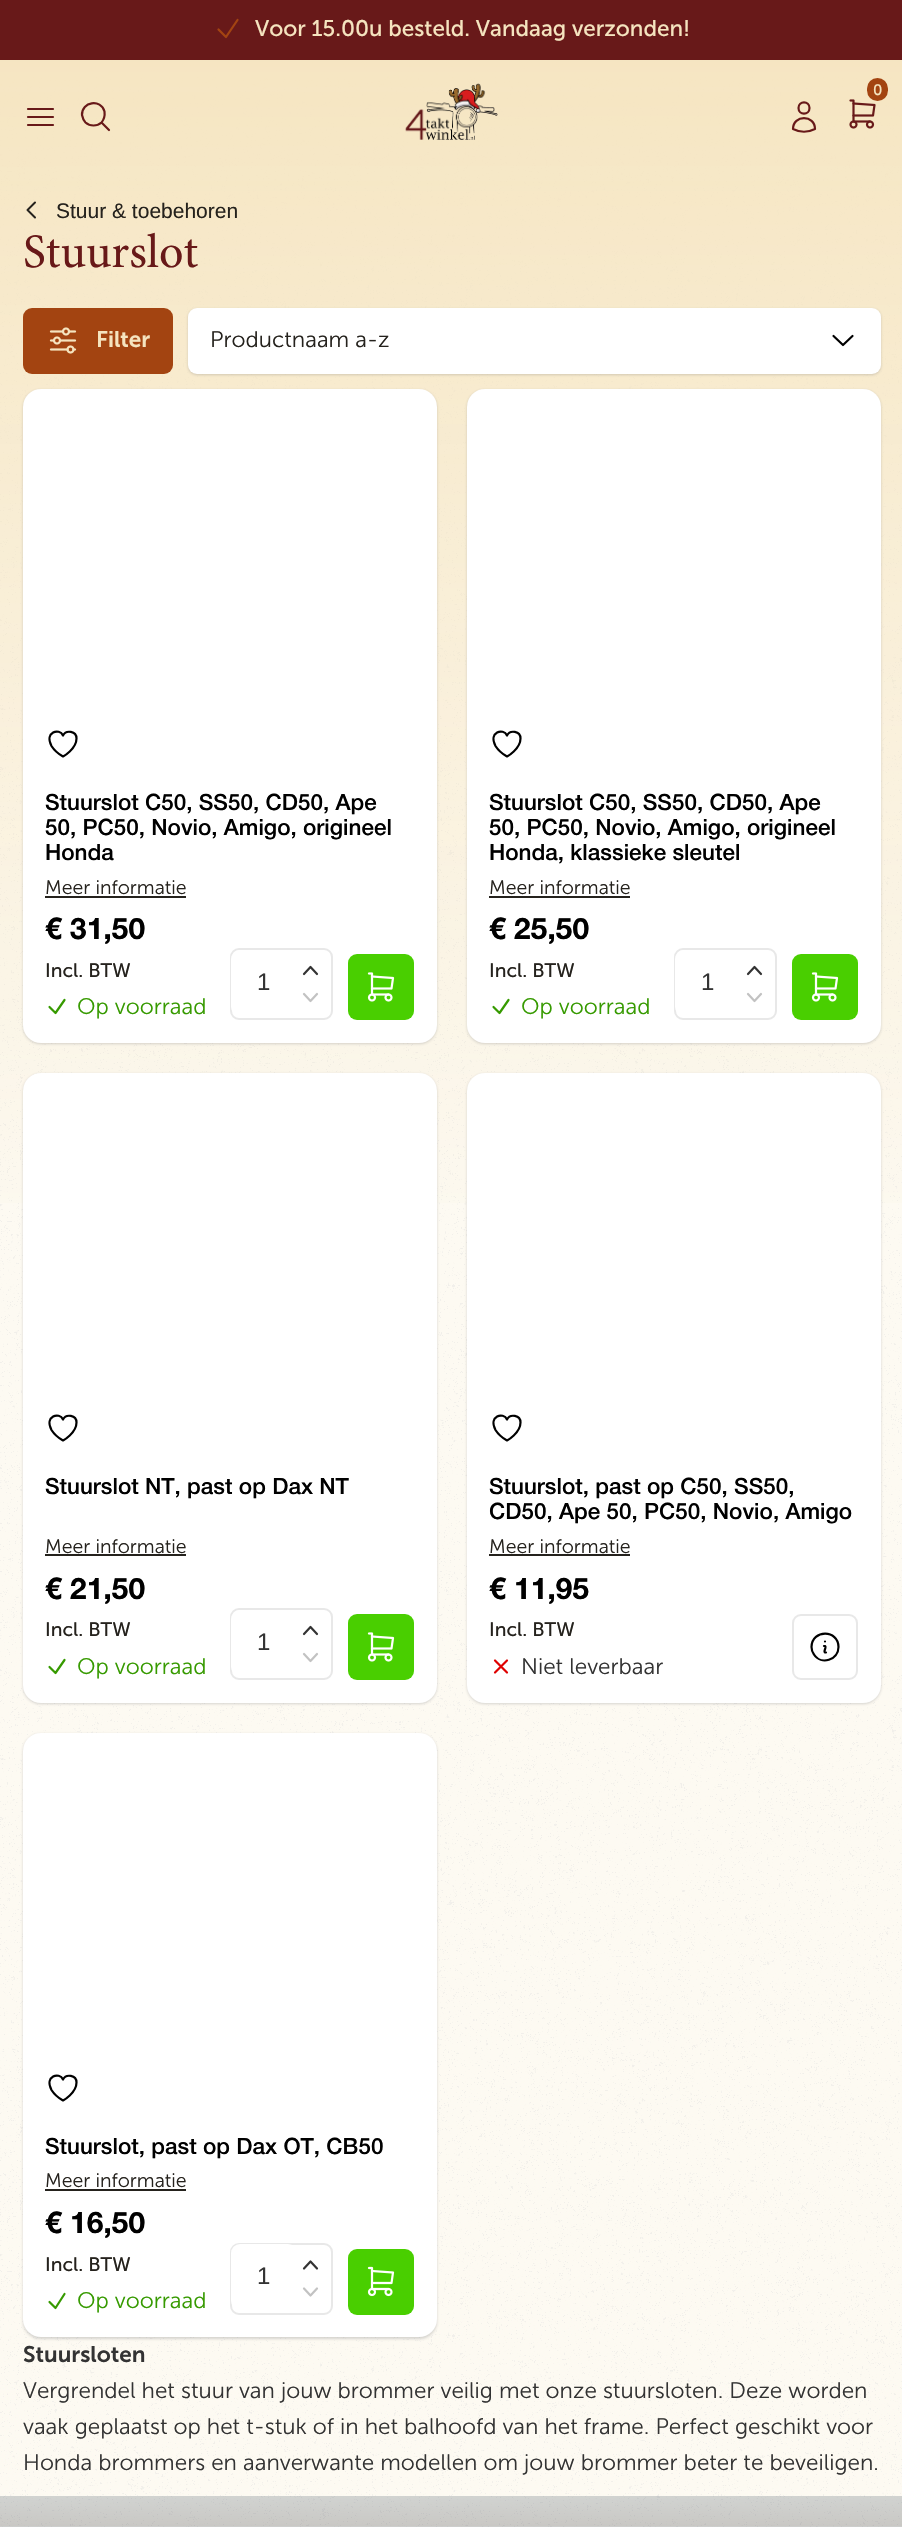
void draw(SkCanvas* canvas) {
    SkPaint paint;
    paint.setAntiAlias(true);
    auto face = [&](const char* family, int weight, float size, bool italic = false) {
        SkFontStyle style(weight, SkFontStyle::kNormal_Width,
            italic ? SkFontStyle::kItalic_Slant : SkFontStyle::kUpright_Slant);
        SkFont result(fontMgr->matchFamilyStyle(family, style), size);
        result.setSubpixel(true);
        return result;
    };
    auto write = [&](const char* s, float x, float y, const SkFont& font, SkColor color) {
        SkPaint ink(SkColor4f::FromColor(color));
        ink.setAntiAlias(true);
        canvas->drawString(s, x, y, font, ink);
    };
    auto block = [&](float x, float y, float w, float h, SkColor color) {
        SkPaint ink(SkColor4f::FromColor(color));
        ink.setAntiAlias(true);
        canvas->drawRect(SkRect::MakeXYWH(x, y, w, h), ink);
    };
    auto card = [&](float x, float y, float w, float h, float radius, SkColor color) {
        SkPaint ink(SkColor4f::FromColor(color));
        ink.setAntiAlias(true);
        canvas->drawRoundRect(SkRect::MakeXYWH(x, y, w, h), radius, radius, ink);
    };
    auto paste = [&](const char* path, float x, float y, float w, float h) {
        auto image = SkImages::DeferredFromEncodedData(SkData::MakeFromFileName(path));
        canvas->drawImageRect(image, SkRect::MakeXYWH(x, y, w, h), SkSamplingOptions());
    };
    canvas->clear(SkColorSetRGB(253, 250, 242));
    block(0, 0, 902, 60, SkColorSetRGB(104, 25, 25));
    paint.setStyle(SkPaint::kStroke_Style);
    paint.setStrokeWidth(2.2f);
    paint.setStrokeCap(SkPaint::kRound_Cap);
    paint.setStrokeJoin(SkPaint::kRound_Join);
    paint.setColor(SkColorSetRGB(163, 68, 17));
    canvas->drawPath(SkPathBuilder().moveTo(218.5f, 29.5f).lineTo(226, 37).lineTo(237.5f, 20).detach(), paint);
    auto kFont1 = face("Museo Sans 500", 400, 22.5f);
    write("Voor 15.00u besteld. Vandaag verzonden!", 255, 36, kFont1, SkColorSetRGB(245, 228, 191));
    paste("pic3.png", 0, 60, 902, 2467);
    paint.setStyle(SkPaint::kFill_Style);
    {
        const SkColor colors[] = {SkColorSetRGB(245, 228, 191), SkColorSetARGB(0, 245, 228, 191)};
        const float stops[] = {0, 1};
        const SkPoint ends[] = {{451, 0}, {452, 1265}};
        paint.setShader(SkGradientShader::MakeLinear(ends, colors, stops, 2, SkTileMode::kClamp));
        paint.setAlpha(255);
    }
    canvas->drawRect(SkRect::MakeXYWH(0, 60, 902, 1143), paint);
    paste("pic1.png", 405, 83, 93, 57);
    paste("pic2.png", 849, 99, 27, 30);
    card(867, 78, 21, 23, 10.5f, SkColorSetRGB(163, 68, 17));
    auto kFont2 = face("Museo Sans 500", 400, 15);
    write("0", 873, 95, kFont2, SkColorSetRGB(245, 228, 191));
    paint.setStyle(SkPaint::kStroke_Style);
    paint.setShader(nullptr);
    paint.setColor(SkColorSetRGB(104, 25, 25));
    canvas->drawPath(SkPathBuilder().moveTo(809.5f, 108).cubicTo(809.5f, 115.5f, 798.5f, 115.5f, 798.5f, 108).cubicTo(798.5f, 100.5f, 809.5f, 100.5f, 809.5f, 108).close().moveTo(793, 129).cubicTo(793, 114.5f, 815, 114.5f, 815, 129).cubicTo(808, 132.5f, 800, 132.5f, 793, 129).close().detach(), paint);
    canvas->drawPath(SkPathBuilder().moveTo(28, 109).lineTo(53, 109).moveTo(28, 117).lineTo(53, 117).moveTo(28, 125).lineTo(53, 125).detach(), paint);
    canvas->drawPath(SkPathBuilder().moveTo(109, 130).lineTo(101.5f, 122.5f).moveTo(101.5f, 122.5f).cubicTo(104, 119.5f, 105, 115.5f, 104.5f, 111.5f).cubicTo(101, 98.5f, 81.5f, 101.5f, 82, 115).cubicTo(82.5f, 117.5f, 83.5f, 120.5f, 85.5f, 122.5f).cubicTo(90, 126.5f, 97, 126.5f, 101.5f, 122.5f).close().detach(), paint);
    paint.setStrokeWidth(2);
    paint.setColor(SkColorSetRGB(37, 34, 29));
    canvas->drawPath(SkPathBuilder().moveTo(35, 202.5f).lineTo(27.5f, 210).lineTo(35, 217.5f).detach(), paint);
    auto kFont3 = face("Liberation Sans", 400, 21);
    write("Stuur & toebehoren", 56, 218, kFont3, SkColorSetRGB(37, 34, 29));
    auto kFont4 = face("Minion", 400, 48);
    write("Stuurslot", 23, 267, kFont4, SkColorSetRGB(104, 25, 25));
    card(23, 308, 150, 66, 9, SkColorSetRGB(163, 68, 17));
    paste("pic4.png", 49, 327, 28, 27);
    auto kFont5 = face("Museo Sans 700", 600, 22.5f);
    write("Filter", 96, 347, kFont5, SkColorSetRGB(245, 228, 191));
    paint.setStyle(SkPaint::kFill_Style);
    paint.setColor(SkColorSetARGB(51, 48, 52, 59));
    paint.setMaskFilter(SkMaskFilter::MakeBlur(kNormal_SkBlurStyle, 1.5f));
    canvas->drawRoundRect(SkRect::MakeXYWH(188, 309, 693, 66), 9, 9, paint);
    paint.setMaskFilter(nullptr);
    card(188, 308, 693, 66, 9, SK_ColorWHITE);
    paint.setStyle(SkPaint::kStroke_Style);
    paint.setStrokeWidth(2.2f);
    paint.setColor(SK_ColorBLACK);
    canvas->drawPath(SkPathBuilder().moveTo(852.5f, 336).lineTo(843, 345).lineTo(833.5f, 336).detach(), paint);
    auto kFont6 = face("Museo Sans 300", 300, 22.5f);
    write("Productnaam a-z", 210, 347, kFont6, SkColorSetRGB(37, 34, 29));
    paint.setStyle(SkPaint::kFill_Style);
    paint.setColor(SkColorSetARGB(51, 48, 52, 59));
    paint.setMaskFilter(SkMaskFilter::MakeBlur(kNormal_SkBlurStyle, 1.5f));
    canvas->drawRoundRect(SkRect::MakeXYWH(23, 390, 414, 654), 18, 18, paint);
    paint.setMaskFilter(nullptr);
    card(23, 389, 414, 654, 18, SK_ColorWHITE);
    paint.setStyle(SkPaint::kStroke_Style);
    paint.setColor(SK_ColorBLACK);
    canvas->drawPath(SkPathBuilder().moveTo(76.5f, 738.5f).cubicTo(76.5f, 731, 66, 729.5f, 63, 735.5f).cubicTo(59.5f, 727.5f, 44, 732, 51.5f, 746).cubicTo(54, 750, 58.5f, 754, 63, 756.5f).cubicTo(63, 756.5f, 76.5f, 749, 76.5f, 738.5f).close().detach(), paint);
    auto kFont7 = face("Helvetica Neue", 500, 22.5f);
    write("Stuurslot C50, SS50, CD50, Ape", 45, 810, kFont7, SK_ColorBLACK);
    write("50, PC50, Novio, Amigo, origineel", 45, 835, kFont7, SK_ColorBLACK);
    write("Honda", 45, 860, kFont7, SK_ColorBLACK);
    auto kFont8 = face("Museo Sans 300", 300, 19.5f);
    write("Meer informatie", 45, 894, kFont8, SkColorSetRGB(37, 34, 29));
    block(45, 896, 141, 2, SkColorSetRGB(37, 34, 29));
    auto kFont9 = face("Helvetica Neue", 700, 30);
    write("€ 31,50", 45, 939, kFont9, SK_ColorBLACK);
    auto kFont10 = face("Museo Sans 500", 400, 19.5f);
    write("Incl. BTW", 45, 977, kFont10, SkColorSetRGB(37, 34, 29));
    paint.setStrokeWidth(2);
    paint.setStrokeCap(SkPaint::kButt_Cap);
    paint.setStrokeJoin(SkPaint::kMiter_Join);
    paint.setColor(SkColorSetRGB(232, 232, 232));
    canvas->drawRoundRect(SkRect::MakeXYWH(231, 949, 101, 70), 8, 8, paint);
    card(231, 950, 66, 66, 9, SK_ColorWHITE);
    auto kFont11 = face("Liberation Sans", 400, 24);
    write("1", 257, 990, kFont11, SkColorSetRGB(51, 51, 51));
    paint.setStrokeWidth(2.2f);
    paint.setStrokeCap(SkPaint::kRound_Cap);
    paint.setStrokeJoin(SkPaint::kRound_Join);
    paint.setColor(SkColorSetRGB(51, 51, 51));
    canvas->drawPath(SkPathBuilder().moveTo(304, 974).lineTo(310.5f, 967).lineTo(317, 974).detach(), paint);
    paint.setColor(SkColorSetRGB(194, 194, 194));
    canvas->drawPath(SkPathBuilder().moveTo(304, 994).lineTo(310.5f, 1001).lineTo(317, 994).detach(), paint);
    card(348, 954, 66, 66, 9, SkColorSetRGB(73, 207, 0));
    paste("pic5.png", 367, 972, 28, 30);
    paint.setColor(SkColorSetRGB(54, 154, 0));
    canvas->drawPath(SkPathBuilder().moveTo(49.5f, 1007).lineTo(55.5f, 1013).lineTo(64.5f, 1000).detach(), paint);
    write("Op voorraad", 77, 1014, kFont6, SkColorSetRGB(54, 154, 0));
    paint.setStyle(SkPaint::kFill_Style);
    paint.setColor(SkColorSetARGB(51, 48, 52, 59));
    paint.setMaskFilter(SkMaskFilter::MakeBlur(kNormal_SkBlurStyle, 1.5f));
    canvas->drawRoundRect(SkRect::MakeXYWH(467, 390, 414, 654), 18, 18, paint);
    paint.setMaskFilter(nullptr);
    card(467, 389, 414, 654, 18, SK_ColorWHITE);
    paint.setStyle(SkPaint::kStroke_Style);
    paint.setColor(SK_ColorBLACK);
    canvas->drawPath(SkPathBuilder().moveTo(520.5f, 738.5f).cubicTo(520.5f, 731, 510, 729.5f, 507, 735.5f).cubicTo(503.5f, 727.5f, 488, 732, 495.5f, 746).cubicTo(498, 750, 502.5f, 754, 507, 756.5f).cubicTo(507, 756.5f, 520.5f, 749, 520.5f, 738.5f).close().detach(), paint);
    write("Stuurslot C50, SS50, CD50, Ape", 489, 810, kFont7, SK_ColorBLACK);
    write("50, PC50, Novio, Amigo, origineel", 489, 835, kFont7, SK_ColorBLACK);
    write("Honda, klassieke sleutel", 489, 860, kFont7, SK_ColorBLACK);
    write("Meer informatie", 489, 894, kFont8, SkColorSetRGB(37, 34, 29));
    block(489, 896, 141, 2, SkColorSetRGB(37, 34, 29));
    write("€ 25,50", 489, 939, kFont9, SK_ColorBLACK);
    write("Incl. BTW", 489, 977, kFont10, SkColorSetRGB(37, 34, 29));
    paint.setStrokeWidth(2);
    paint.setStrokeCap(SkPaint::kButt_Cap);
    paint.setStrokeJoin(SkPaint::kMiter_Join);
    paint.setColor(SkColorSetRGB(232, 232, 232));
    canvas->drawRoundRect(SkRect::MakeXYWH(675, 949, 101, 70), 8, 8, paint);
    card(675, 950, 66, 66, 9, SK_ColorWHITE);
    write("1", 701, 990, kFont11, SkColorSetRGB(51, 51, 51));
    paint.setStrokeWidth(2.2f);
    paint.setStrokeCap(SkPaint::kRound_Cap);
    paint.setStrokeJoin(SkPaint::kRound_Join);
    paint.setColor(SkColorSetRGB(51, 51, 51));
    canvas->drawPath(SkPathBuilder().moveTo(748, 974).lineTo(754.5f, 967).lineTo(761, 974).detach(), paint);
    paint.setColor(SkColorSetRGB(194, 194, 194));
    canvas->drawPath(SkPathBuilder().moveTo(748, 994).lineTo(754.5f, 1001).lineTo(761, 994).detach(), paint);
    card(792, 954, 66, 66, 9, SkColorSetRGB(73, 207, 0));
    paste("pic5.png", 811, 972, 28, 30);
    paint.setColor(SkColorSetRGB(54, 154, 0));
    canvas->drawPath(SkPathBuilder().moveTo(493.5f, 1007).lineTo(499.5f, 1013).lineTo(508.5f, 1000).detach(), paint);
    write("Op voorraad", 521, 1014, kFont6, SkColorSetRGB(54, 154, 0));
    paint.setStyle(SkPaint::kFill_Style);
    paint.setColor(SkColorSetARGB(51, 48, 52, 59));
    paint.setMaskFilter(SkMaskFilter::MakeBlur(kNormal_SkBlurStyle, 1.5f));
    canvas->drawRoundRect(SkRect::MakeXYWH(23, 1074, 414, 630), 18, 18, paint);
    paint.setMaskFilter(nullptr);
    card(23, 1073, 414, 630, 18, SK_ColorWHITE);
    paint.setStyle(SkPaint::kStroke_Style);
    paint.setColor(SK_ColorBLACK);
    canvas->drawPath(SkPathBuilder().moveTo(76.5f, 1422.5f).cubicTo(76.5f, 1415, 66, 1413.5f, 63, 1419.5f).cubicTo(59.5f, 1411.5f, 44, 1416, 51.5f, 1430).cubicTo(54, 1434, 58.5f, 1438, 63, 1440.5f).cubicTo(63, 1440.5f, 76.5f, 1433, 76.5f, 1422.5f).close().detach(), paint);
    write("Stuurslot NT, past op Dax NT", 45, 1494, kFont7, SK_ColorBLACK);
    write("Meer informatie", 45, 1553, kFont8, SkColorSetRGB(37, 34, 29));
    block(45, 1554, 141, 2, SkColorSetRGB(37, 34, 29));
    write("€ 21,50", 45, 1599, kFont9, SK_ColorBLACK);
    write("Incl. BTW", 45, 1636, kFont10, SkColorSetRGB(37, 34, 29));
    paint.setStrokeWidth(2);
    paint.setStrokeCap(SkPaint::kButt_Cap);
    paint.setStrokeJoin(SkPaint::kMiter_Join);
    paint.setColor(SkColorSetRGB(232, 232, 232));
    canvas->drawRoundRect(SkRect::MakeXYWH(231, 1609, 101, 70), 8, 8, paint);
    card(231, 1610, 66, 66, 9, SK_ColorWHITE);
    write("1", 257, 1650, kFont11, SkColorSetRGB(51, 51, 51));
    paint.setStrokeWidth(2.2f);
    paint.setStrokeCap(SkPaint::kRound_Cap);
    paint.setStrokeJoin(SkPaint::kRound_Join);
    paint.setColor(SkColorSetRGB(51, 51, 51));
    canvas->drawPath(SkPathBuilder().moveTo(304, 1634).lineTo(310.5f, 1627).lineTo(317, 1634).detach(), paint);
    paint.setColor(SkColorSetRGB(194, 194, 194));
    canvas->drawPath(SkPathBuilder().moveTo(304, 1654).lineTo(310.5f, 1661).lineTo(317, 1654).detach(), paint);
    card(348, 1614, 66, 66, 9, SkColorSetRGB(73, 207, 0));
    paste("pic5.png", 367, 1632, 28, 30);
    paint.setColor(SkColorSetRGB(54, 154, 0));
    canvas->drawPath(SkPathBuilder().moveTo(49.5f, 1667).lineTo(55.5f, 1673).lineTo(64.5f, 1660).detach(), paint);
    write("Op voorraad", 77, 1674, kFont6, SkColorSetRGB(54, 154, 0));
    paint.setStyle(SkPaint::kFill_Style);
    paint.setColor(SkColorSetARGB(51, 48, 52, 59));
    paint.setMaskFilter(SkMaskFilter::MakeBlur(kNormal_SkBlurStyle, 1.5f));
    canvas->drawRoundRect(SkRect::MakeXYWH(467, 1074, 414, 630), 18, 18, paint);
    paint.setMaskFilter(nullptr);
    card(467, 1073, 414, 630, 18, SK_ColorWHITE);
    paint.setStyle(SkPaint::kStroke_Style);
    paint.setColor(SK_ColorBLACK);
    canvas->drawPath(SkPathBuilder().moveTo(520.5f, 1422.5f).cubicTo(520.5f, 1415, 510, 1413.5f, 507, 1419.5f).cubicTo(503.5f, 1411.5f, 488, 1416, 495.5f, 1430).cubicTo(498, 1434, 502.5f, 1438, 507, 1440.5f).cubicTo(507, 1440.5f, 520.5f, 1433, 520.5f, 1422.5f).close().detach(), paint);
    write("Stuurslot, past op C50, SS50,", 489, 1494, kFont7, SK_ColorBLACK);
    write("CD50, Ape 50, PC50, Novio, Amigo", 489, 1519, kFont7, SK_ColorBLACK);
    write("Meer informatie", 489, 1553, kFont8, SkColorSetRGB(37, 34, 29));
    block(489, 1554, 141, 2, SkColorSetRGB(37, 34, 29));
    write("€ 11,95", 489, 1599, kFont9, SK_ColorBLACK);
    write("Incl. BTW", 489, 1636, kFont10, SkColorSetRGB(37, 34, 29));
    paint.setColor(SkColorSetRGB(223, 0, 0));
    canvas->drawPath(SkPathBuilder().moveTo(495, 1672.5f).lineTo(507, 1660.5f).moveTo(495, 1660.5f).lineTo(507, 1672.5f).detach(), paint);
    write("Niet leverbaar", 521, 1674, kFont6, SkColorSetRGB(51, 51, 51));
    paint.setStrokeWidth(2);
    paint.setStrokeCap(SkPaint::kButt_Cap);
    paint.setStrokeJoin(SkPaint::kMiter_Join);
    paint.setColor(SkColorSetRGB(232, 232, 232));
    canvas->drawRoundRect(SkRect::MakeXYWH(793, 1615, 64, 64), 8, 8, paint);
    paint.setStrokeWidth(2.2f);
    paint.setStrokeCap(SkPaint::kRound_Cap);
    paint.setStrokeJoin(SkPaint::kRound_Join);
    paint.setColor(SK_ColorBLACK);
    canvas->drawPath(SkPathBuilder().moveTo(824, 1646).lineTo(825, 1646).cubicTo(827, 1647, 823, 1651.5f, 825, 1652.5f).lineTo(826, 1652.5f).moveTo(838.5f, 1647).cubicTo(838.5f, 1660, 821, 1665.5f, 814, 1654.5f).cubicTo(812.5f, 1652.5f, 811.5f, 1649.5f, 811.5f, 1647).cubicTo(812, 1629, 838.5f, 1629.5f, 838.5f, 1647).close().moveTo(825, 1641.5f).lineTo(825, 1641.5f).close().detach(), paint);
    paint.setStyle(SkPaint::kFill_Style);
    paint.setColor(SkColorSetARGB(51, 48, 52, 59));
    paint.setMaskFilter(SkMaskFilter::MakeBlur(kNormal_SkBlurStyle, 1.5f));
    canvas->drawRoundRect(SkRect::MakeXYWH(23, 1734, 414, 605), 18, 18, paint);
    paint.setMaskFilter(nullptr);
    card(23, 1733, 414, 604, 18, SK_ColorWHITE);
    paint.setStyle(SkPaint::kStroke_Style);
    paint.setColor(SK_ColorBLACK);
    canvas->drawPath(SkPathBuilder().moveTo(76.5f, 2082.5f).cubicTo(76.5f, 2075, 66, 2073.5f, 63, 2079.5f).cubicTo(59.5f, 2071.5f, 44, 2076, 51.5f, 2090).cubicTo(54, 2094, 58.5f, 2098, 63, 2100.5f).cubicTo(63, 2100.5f, 76.5f, 2093, 76.5f, 2082.5f).close().detach(), paint);
    write("Stuurslot, past op Dax OT, CB50", 45, 2154, kFont7, SK_ColorBLACK);
    write("Meer informatie", 45, 2187, kFont8, SkColorSetRGB(37, 34, 29));
    block(45, 2189, 141, 2, SkColorSetRGB(37, 34, 29));
    write("€ 16,50", 45, 2233, kFont9, SK_ColorBLACK);
    write("Incl. BTW", 45, 2271, kFont10, SkColorSetRGB(37, 34, 29));
    paint.setStrokeWidth(2);
    paint.setStrokeCap(SkPaint::kButt_Cap);
    paint.setStrokeJoin(SkPaint::kMiter_Join);
    paint.setColor(SkColorSetRGB(232, 232, 232));
    canvas->drawRoundRect(SkRect::MakeXYWH(231, 2244, 101, 70), 8, 8, paint);
    card(231, 2244, 66, 66, 9, SK_ColorWHITE);
    write("1", 257, 2284, kFont11, SkColorSetRGB(51, 51, 51));
    paint.setStrokeWidth(2.2f);
    paint.setStrokeCap(SkPaint::kRound_Cap);
    paint.setStrokeJoin(SkPaint::kRound_Join);
    paint.setColor(SkColorSetRGB(51, 51, 51));
    canvas->drawPath(SkPathBuilder().moveTo(304, 2268.5f).lineTo(310.5f, 2261.5f).lineTo(317, 2268.5f).detach(), paint);
    paint.setColor(SkColorSetRGB(194, 194, 194));
    canvas->drawPath(SkPathBuilder().moveTo(304, 2288.5f).lineTo(310.5f, 2295.5f).lineTo(317, 2288.5f).detach(), paint);
    card(348, 2249, 66, 66, 9, SkColorSetRGB(73, 207, 0));
    paste("pic6.png", 367, 2266, 28, 31);
    paint.setColor(SkColorSetRGB(54, 154, 0));
    canvas->drawPath(SkPathBuilder().moveTo(49.5f, 2302).lineTo(55.5f, 2308).lineTo(64.5f, 2294).detach(), paint);
    write("Op voorraad", 77, 2308, kFont6, SkColorSetRGB(54, 154, 0));
    write("Stuursloten", 23, 2362, kFont5, SkColorSetRGB(51, 51, 51));
    write("Vergrendel het stuur van jouw brommer veilig met onze stuursloten. Deze worden", 23, 2398, kFont6, SkColorSetRGB(51, 51, 51));
    write("vaak geplaatst op het t-stuk of in het balhoofd van het frame. Perfect geschikt voor", 23, 2434, kFont6, SkColorSetRGB(51, 51, 51));
    write("Honda brommers en aanverwante modellen om jouw brommer beter te beveiligen.", 23, 2470, kFont6, SkColorSetRGB(51, 51, 51));
    paint.setStyle(SkPaint::kFill_Style);
    {
        const SkColor colors[] = {SkColorSetARGB(59, 66, 83, 99), SkColorSetARGB(59, 30, 33, 44)};
        const float stops[] = {0, 1};
        const SkPoint ends[] = {{452, 2496}, {452, 2526}};
        paint.setShader(SkGradientShader::MakeLinear(ends, colors, stops, 2, SkTileMode::kClamp));
        paint.setAlpha(255);
    }
    canvas->drawRect(SkRect::MakeXYWH(0, 2496, 902, 30), paint);
    {
        const SkColor colors[] = {SkColorSetARGB(59, 66, 83, 99), SkColorSetARGB(59, 30, 33, 44)};
        const float stops[] = {0, 1};
        const SkPoint ends[] = {{452, 2526}, {452, 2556}};
        paint.setShader(SkGradientShader::MakeLinear(ends, colors, stops, 2, SkTileMode::kClamp));
        paint.setAlpha(255);
    }
    canvas->drawRect(SkRect::MakeXYWH(0, 2526, 902, 1), paint);
    block(0, 2526, 902, 1, SkColorSetARGB(59, 187, 187, 187));
}
